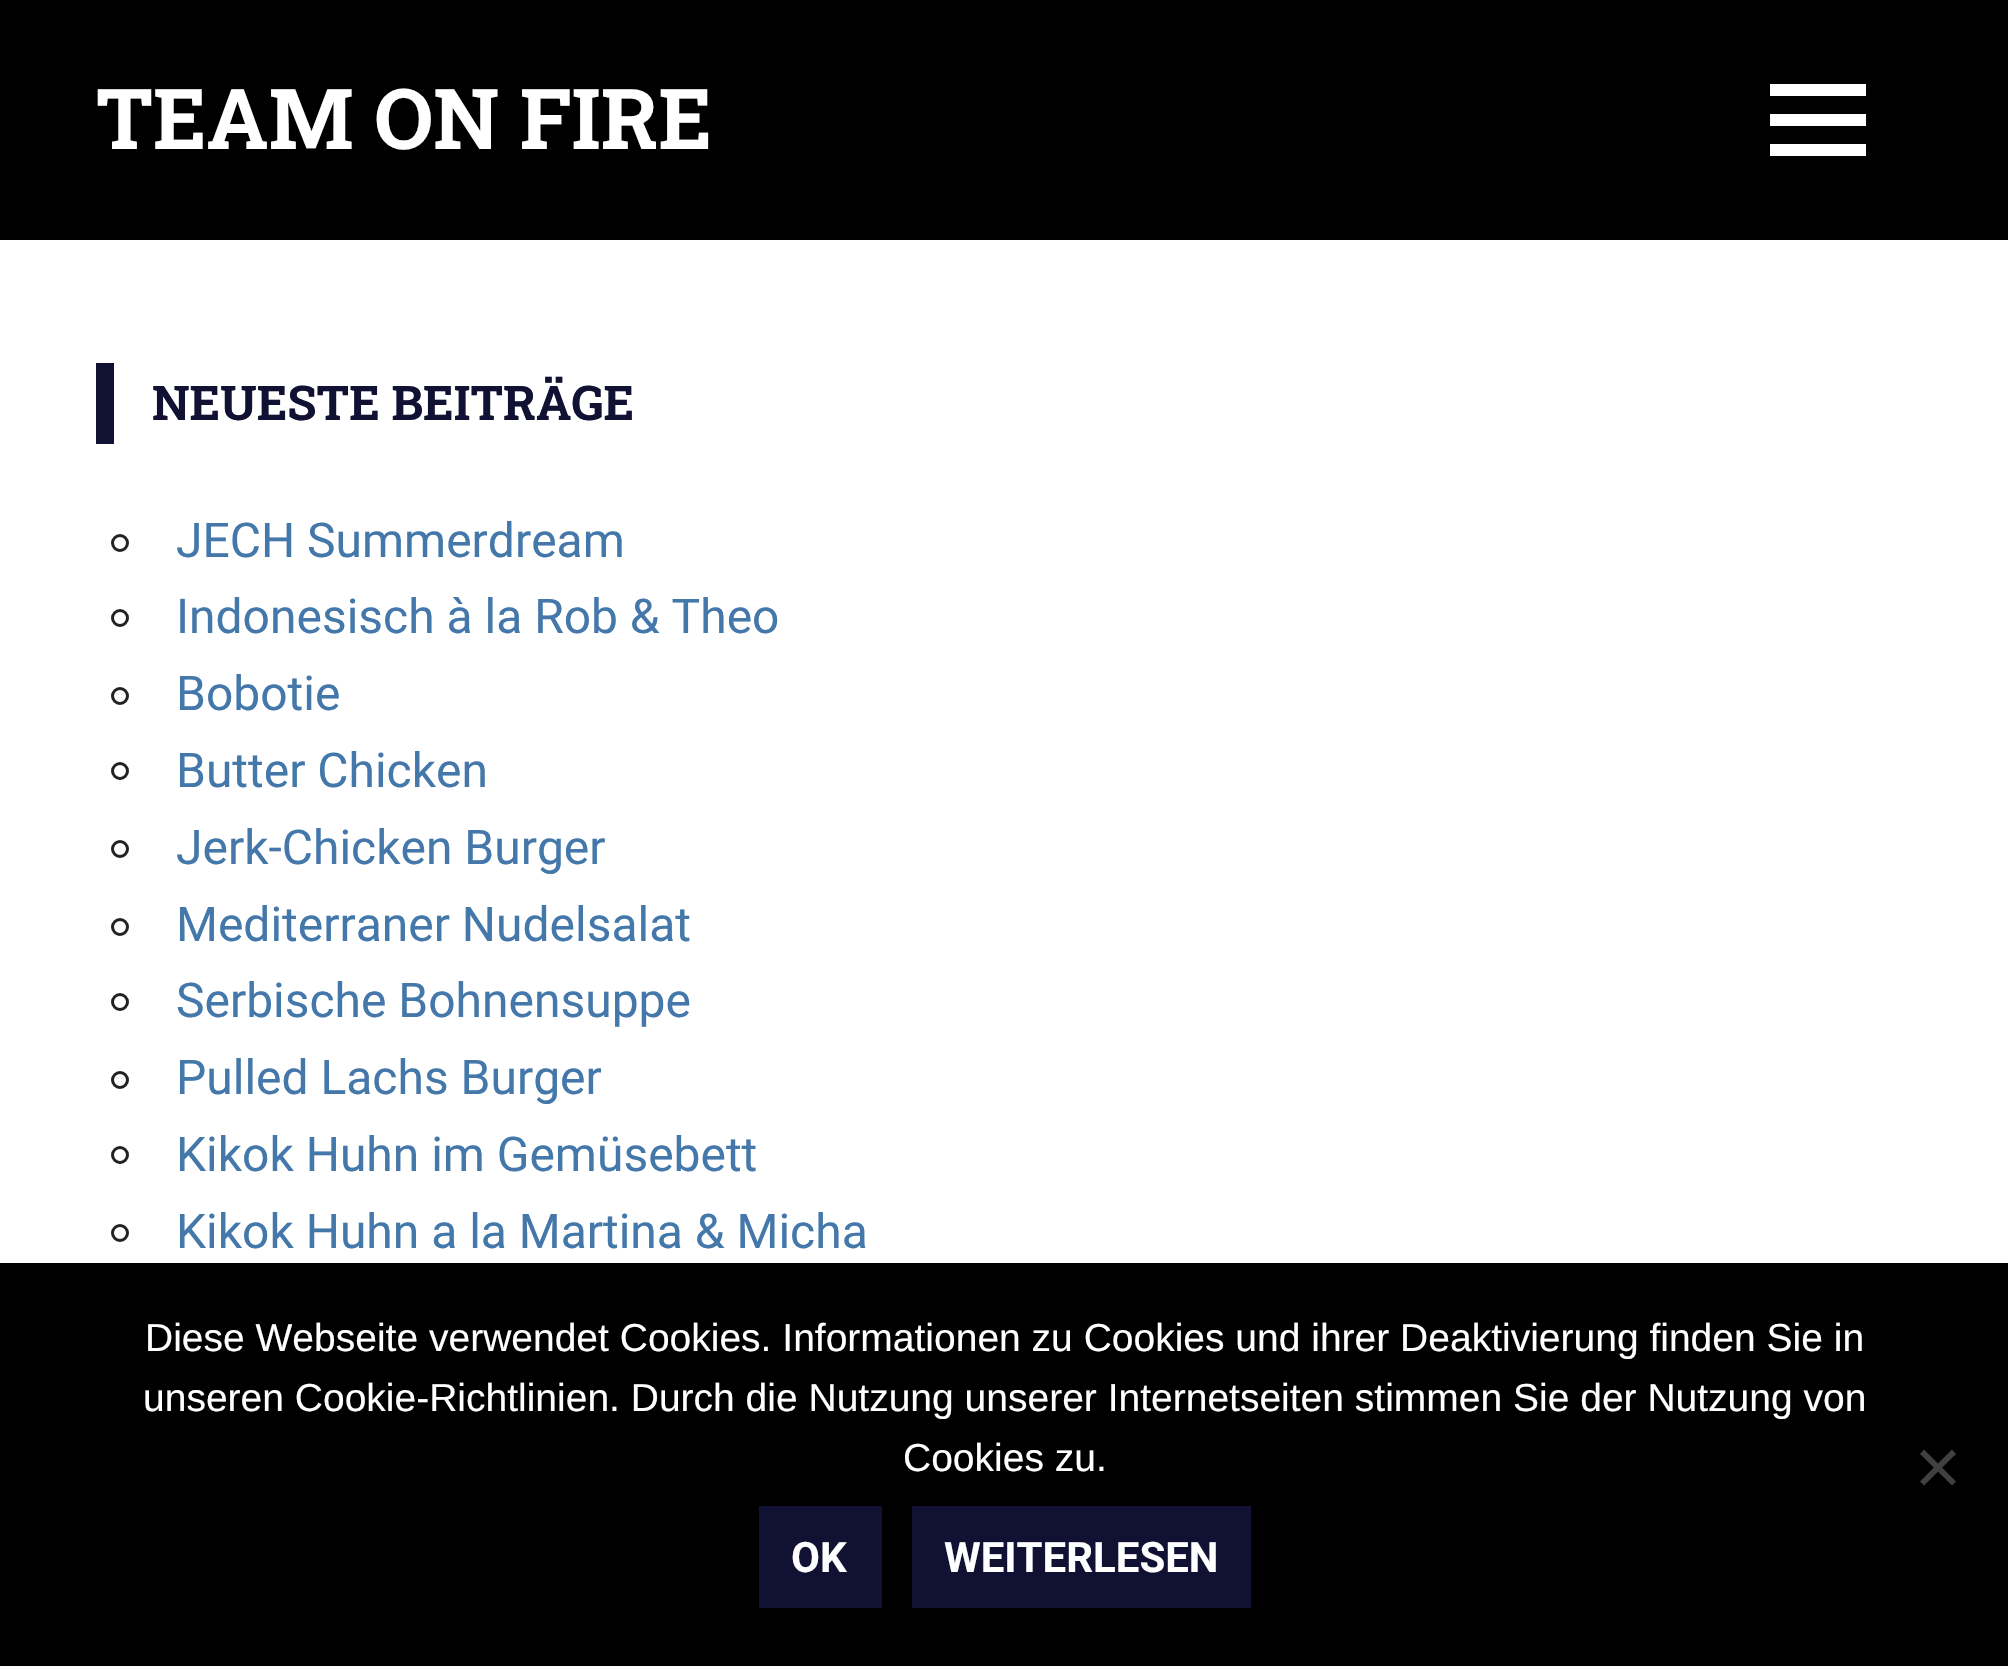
void draw(SkCanvas* canvas) {
    SkPaint paint;
    paint.setAntiAlias(true);
    auto face = [&](const char* family, int weight, float size, bool italic = false) {
        SkFontStyle style(weight, SkFontStyle::kNormal_Width,
            italic ? SkFontStyle::kItalic_Slant : SkFontStyle::kUpright_Slant);
        SkFont result(fontMgr->matchFamilyStyle(family, style), size);
        result.setSubpixel(true);
        return result;
    };
    auto write = [&](const char* s, float x, float y, const SkFont& font, SkColor color) {
        SkPaint ink(SkColor4f::FromColor(color));
        ink.setAntiAlias(true);
        canvas->drawString(s, x, y, font, ink);
    };
    auto block = [&](float x, float y, float w, float h, SkColor color) {
        SkPaint ink(SkColor4f::FromColor(color));
        ink.setAntiAlias(true);
        canvas->drawRect(SkRect::MakeXYWH(x, y, w, h), ink);
    };
    auto paste = [&](const char* path, float x, float y, float w, float h) {
        auto image = SkImages::DeferredFromEncodedData(SkData::MakeFromFileName(path));
        canvas->drawImageRect(image, SkRect::MakeXYWH(x, y, w, h), SkSamplingOptions());
    };
    canvas->clear(SK_ColorWHITE);
    block(0, 0, 2008, 240, SK_ColorBLACK);
    auto kFont1 = face("Roboto Slab", 700, 84);
    write("TEAM ON FIRE", 96, 149, kFont1, SK_ColorWHITE);
    paste("pic1.png", 1770, 84, 96, 72);
    block(96, 363, 18, 81, SkColorSetRGB(17, 17, 51));
    auto kFont2 = face("Roboto Slab", 700, 48);
    write("NEUESTE BEITRÄGE", 152, 420, kFont2, SkColorSetRGB(17, 17, 51));
    paint.setStyle(SkPaint::kStroke_Style);
    paint.setStrokeWidth(3);
    paint.setColor(SkColorSetRGB(34, 34, 34));
    canvas->drawCircle(120, 543, 7.5f, paint);
    auto kFont3 = face("Roboto", 400, 48);
    write("JECH Summerdream", 176, 557, kFont3, SkColorSetRGB(68, 119, 170));
    canvas->drawCircle(120, 618, 7.5f, paint);
    write("Indonesisch à la Rob & Theo", 176, 633, kFont3, SkColorSetRGB(68, 119, 170));
    canvas->drawCircle(120, 696, 7.5f, paint);
    write("Bobotie", 176, 710, kFont3, SkColorSetRGB(68, 119, 170));
    canvas->drawCircle(120, 771, 7.5f, paint);
    write("Butter Chicken", 176, 787, kFont3, SkColorSetRGB(68, 119, 170));
    canvas->drawCircle(120, 849, 7.5f, paint);
    write("Jerk-Chicken Burger", 176, 864, kFont3, SkColorSetRGB(68, 119, 170));
    canvas->drawCircle(120, 927, 7.5f, paint);
    write("Mediterraner Nudelsalat", 176, 941, kFont3, SkColorSetRGB(68, 119, 170));
    canvas->drawCircle(120, 1002, 7.5f, paint);
    write("Serbische Bohnensuppe", 176, 1017, kFont3, SkColorSetRGB(68, 119, 170));
    canvas->drawCircle(120, 1080, 7.5f, paint);
    write("Pulled Lachs Burger", 176, 1094, kFont3, SkColorSetRGB(68, 119, 170));
    canvas->drawCircle(120, 1155, 7.5f, paint);
    write("Kikok Huhn im Gemüsebett", 176, 1171, kFont3, SkColorSetRGB(68, 119, 170));
    canvas->drawCircle(120, 1233, 7.5f, paint);
    write("Kikok Huhn a la Martina & Micha", 176, 1248, kFont3, SkColorSetRGB(68, 119, 170));
    block(0, 1263, 2008, 403, SK_ColorBLACK);
    auto kFont4 = face("Liberation Sans", 400, 39);
    write("Diese Webseite verwendet Cookies. Informationen zu Cookies und ihrer Deaktivierung finden Sie in", 145, 1351, kFont4, SK_ColorWHITE);
    write("unseren Cookie-Richtlinien. Durch die Nutzung unserer Internetseiten stimmen Sie der Nutzung von", 143, 1411, kFont4, SK_ColorWHITE);
    write("Cookies zu.", 903, 1471, kFont4, SK_ColorWHITE);
    paint.setStyle(SkPaint::kFill_Style);
    paint.setColor(SkColorSetRGB(64, 64, 64));
    canvas->drawPath(SkPathBuilder().moveTo(1952, 1449.5f).lineTo(1956, 1454).lineTo(1924, 1485.5f).lineTo(1920, 1481.5f).close().detach(), paint);
    canvas->drawPath(SkPathBuilder().moveTo(1920, 1454).lineTo(1924, 1449.5f).lineTo(1956, 1481.5f).lineTo(1952, 1485.5f).close().detach(), paint);
    block(759, 1506, 123, 102, SkColorSetRGB(17, 17, 51));
    auto kFont5 = face("Roboto", 700, 42);
    write("OK", 791, 1572, kFont5, SK_ColorWHITE);
    block(912, 1506, 339, 102, SkColorSetRGB(17, 17, 51));
    write("WEITERLESEN", 944, 1572, kFont5, SK_ColorWHITE);
}
